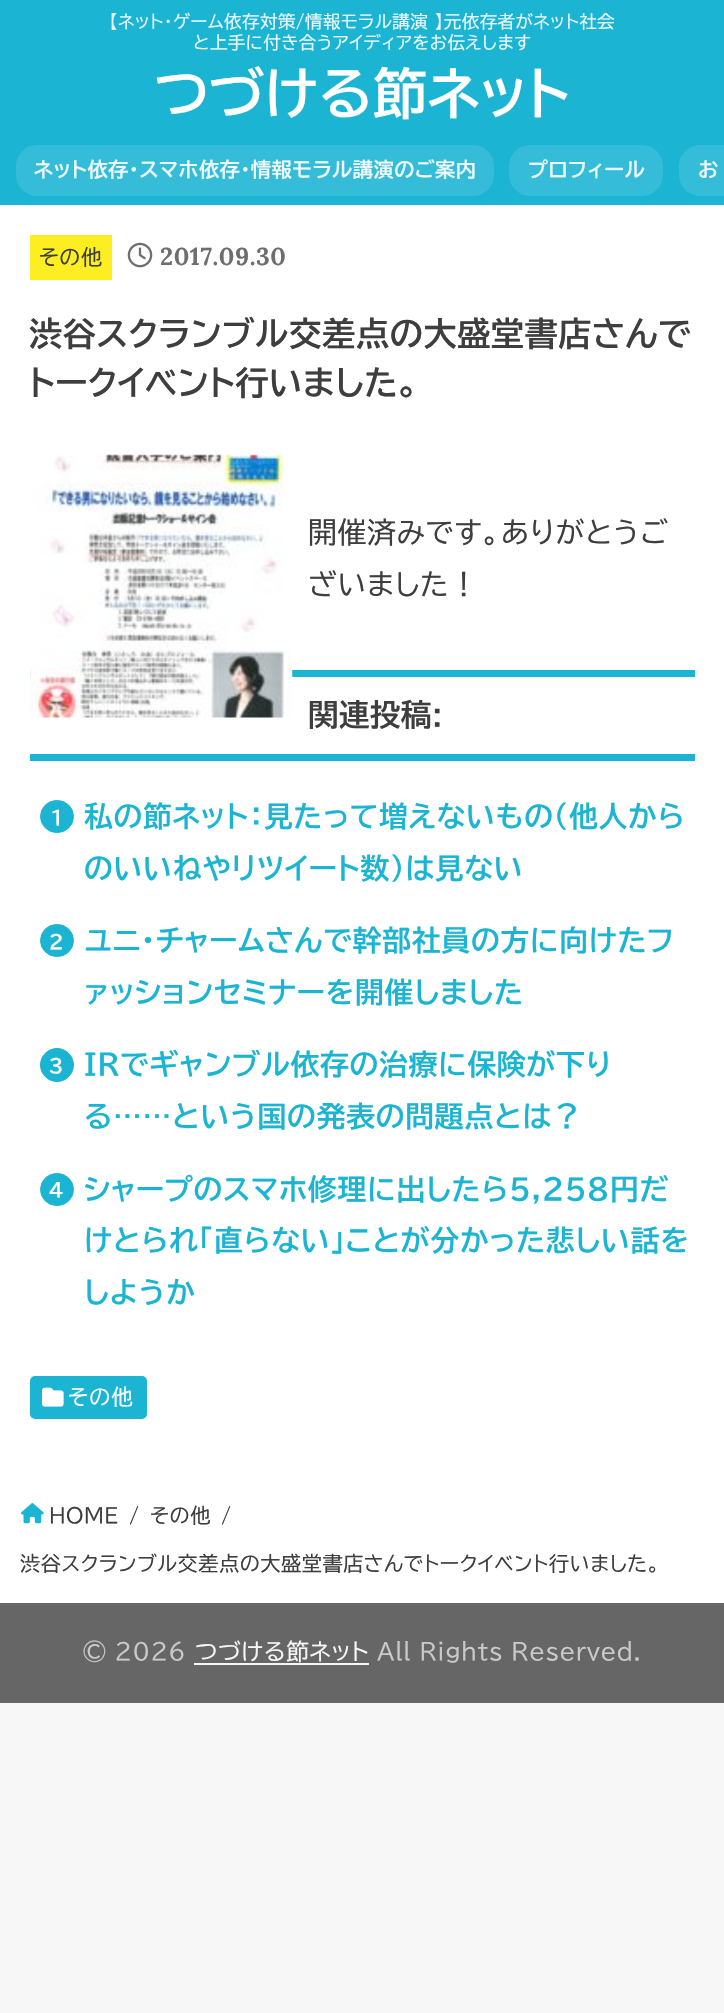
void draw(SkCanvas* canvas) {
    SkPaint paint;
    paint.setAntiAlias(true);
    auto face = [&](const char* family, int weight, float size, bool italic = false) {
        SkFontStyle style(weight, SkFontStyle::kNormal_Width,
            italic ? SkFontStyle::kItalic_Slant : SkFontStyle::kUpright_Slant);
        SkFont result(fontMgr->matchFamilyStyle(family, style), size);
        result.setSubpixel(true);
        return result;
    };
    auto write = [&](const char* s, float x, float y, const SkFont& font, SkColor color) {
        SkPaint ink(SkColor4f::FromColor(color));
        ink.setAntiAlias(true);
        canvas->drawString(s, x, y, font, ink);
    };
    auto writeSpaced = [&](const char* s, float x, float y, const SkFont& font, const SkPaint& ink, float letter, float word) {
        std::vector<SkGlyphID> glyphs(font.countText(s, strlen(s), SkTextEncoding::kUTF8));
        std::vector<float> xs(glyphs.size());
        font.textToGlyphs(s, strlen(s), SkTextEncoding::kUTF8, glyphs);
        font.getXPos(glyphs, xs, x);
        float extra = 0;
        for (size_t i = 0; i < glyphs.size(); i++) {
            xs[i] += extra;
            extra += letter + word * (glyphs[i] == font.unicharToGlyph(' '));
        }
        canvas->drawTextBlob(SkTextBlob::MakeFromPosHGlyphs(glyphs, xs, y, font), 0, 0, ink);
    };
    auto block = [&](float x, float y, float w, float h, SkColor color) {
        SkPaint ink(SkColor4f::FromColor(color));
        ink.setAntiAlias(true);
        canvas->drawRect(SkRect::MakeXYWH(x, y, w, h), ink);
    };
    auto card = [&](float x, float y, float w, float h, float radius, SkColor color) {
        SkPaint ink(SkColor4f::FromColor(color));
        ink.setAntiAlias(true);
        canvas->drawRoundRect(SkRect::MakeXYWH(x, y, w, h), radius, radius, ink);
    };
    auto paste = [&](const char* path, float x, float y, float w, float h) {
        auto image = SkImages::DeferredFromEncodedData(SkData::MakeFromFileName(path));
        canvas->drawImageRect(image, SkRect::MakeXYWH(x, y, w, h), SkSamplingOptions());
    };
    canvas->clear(SkColorSetRGB(247, 247, 247));
    block(0, 0, 724, 205, SkColorSetRGB(27, 180, 211));
    auto kFont1 = face("BIZ UDPGothic", 400, 17.5f);
    paint.setColor(SkColorSetRGB(237, 249, 252));
    writeSpaced("【ネット・ゲーム依存対策/情報モラル講演 】元依存者がネット社会", 109, 28, kFont1, paint, 0.45f, 0);
    writeSpaced("と上手に付き合うアイディアをお伝えします", 193, 49, kFont1, paint, 0.45f, 0);
    auto kFont2 = face("BIZ UDPGothic", 700, 54.75f);
    paint.setColor(SK_ColorWHITE);
    writeSpaced("つづける節ネット", 154, 114, kFont2, paint, 0.5f, 0);
    card(16, 145, 478, 51, 21, SkColorSetRGB(52, 188, 216));
    auto kFont3 = face("BIZ UDPGothic", 700, 20.2f);
    paint.setColor(SkColorSetRGB(237, 249, 252));
    writeSpaced("ネット依存・スマホ依存・情報モラル講演のご案内", 34, 177, kFont3, paint, 0.5f, 0);
    card(509, 145, 154, 51, 21, SkColorSetRGB(52, 188, 216));
    writeSpaced("プロフィール", 528, 177, kFont3, paint, 0.5f, 0);
    paint.setColor(SkColorSetRGB(52, 188, 216));
    canvas->drawPath(SkPathBuilder().moveTo(700, 145).lineTo(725, 145).lineTo(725, 196).lineTo(700, 196).cubicTo(688.5f, 196, 679, 186.5f, 679, 175).lineTo(679, 166).cubicTo(679, 154.5f, 688.5f, 145, 700, 145).close().detach(), paint);
    paint.setColor(SkColorSetRGB(237, 249, 252));
    writeSpaced("お", 698, 177, kFont3, paint, 0.5f, 0);
    block(0, 205, 724, 1398, SK_ColorWHITE);
    block(30, 235, 82, 45, SkColorSetRGB(252, 238, 33));
    auto kFont4 = face("BIZ UDPGothic", 400, 21);
    paint.setColor(SkColorSetRGB(62, 62, 62));
    writeSpaced("その他", 39, 265, kFont4, paint, 0.6f, 0);
    paste("pic1.png", 127, 242, 26, 26);
    auto kFont5 = face("Lora", 700, 24.5f);
    paint.setColor(SkColorSetRGB(110, 110, 110));
    writeSpaced("2017.09.30", 160, 265, kFont5, paint, 0.6f, 0);
    auto kFont6 = face("BIZ UDPGothic", 700, 33.2f);
    paint.setColor(SkColorSetRGB(62, 62, 62));
    writeSpaced("渋谷スクランブル交差点の大盛堂書店さんで", 29, 346, kFont6, paint, 0.5f, 0);
    writeSpaced("トークイベント行いました。", 29, 395, kFont6, paint, 0.5f, 0);
    block(30, 670, 665, 7, SkColorSetRGB(27, 180, 211));
    paste("pic2.png", 29, 454, 264, 264);
    auto kFont7 = face("BIZ UDPGothic", 400, 28.8f);
    writeSpaced("開催済みです。ありがとうご", 308, 543, kFont7, paint, 0.75f, 0);
    writeSpaced("ざいました！", 308, 595, kFont7, paint, 0.75f, 0);
    block(30, 754, 665, 7, SkColorSetRGB(27, 180, 211));
    auto kFont8 = face("BIZ UDPGothic", 700, 30.5f);
    writeSpaced("関連投稿:", 308, 726, kFont8, paint, 0.5f, 0);
    paint.setColor(SkColorSetRGB(27, 180, 211));
    canvas->drawRoundRect(SkRect::MakeXYWH(40.5f, 800.5f, 33, 32), 16, 16, paint);
    paint.setStyle(SkPaint::kStroke_Style);
    paint.setStrokeWidth(1);
    canvas->drawRoundRect(SkRect::MakeXYWH(40.5f, 800.5f, 33, 32), 16, 16, paint);
    auto kFont9 = face("BIZ UDPGothic", 700, 19);
    write("1", 51, 825, kFont9, SK_ColorWHITE);
    auto kFont10 = face("BIZ UDPGothic", 700, 28.8f);
    paint.setStyle(SkPaint::kFill_Style);
    writeSpaced("私の節ネット：見たって増えないもの（他人から", 84, 827, kFont10, paint, 0.75f, 0);
    writeSpaced("のいいねやリツイート数）は見ない", 84, 879, kFont10, paint, 0.75f, 0);
    canvas->drawRoundRect(SkRect::MakeXYWH(40.5f, 924.5f, 33, 32), 16, 16, paint);
    paint.setStyle(SkPaint::kStroke_Style);
    canvas->drawRoundRect(SkRect::MakeXYWH(40.5f, 924.5f, 33, 32), 16, 16, paint);
    write("2", 49, 949, kFont9, SK_ColorWHITE);
    paint.setStyle(SkPaint::kFill_Style);
    writeSpaced("ユニ・チャームさんで幹部社員の方に向けたフ", 84, 951, kFont10, paint, 0.75f, 0);
    writeSpaced("ァッションセミナーを開催しました", 84, 1003, kFont10, paint, 0.75f, 0);
    canvas->drawCircle(57, 1065, 16.5f, paint);
    paint.setStyle(SkPaint::kStroke_Style);
    canvas->drawCircle(57, 1065, 16.5f, paint);
    write("3", 49, 1073, kFont9, SK_ColorWHITE);
    paint.setStyle(SkPaint::kFill_Style);
    writeSpaced("IRでギャンブル依存の治療に保険が下り", 84, 1075, kFont10, paint, 0.75f, 0);
    writeSpaced("る……という国の発表の問題点とは？", 84, 1127, kFont10, paint, 0.75f, 0);
    canvas->drawRoundRect(SkRect::MakeXYWH(40.5f, 1173.5f, 33, 32), 16, 16, paint);
    paint.setStyle(SkPaint::kStroke_Style);
    canvas->drawRoundRect(SkRect::MakeXYWH(40.5f, 1173.5f, 33, 32), 16, 16, paint);
    write("4", 49, 1197, kFont9, SK_ColorWHITE);
    paint.setStyle(SkPaint::kFill_Style);
    writeSpaced("シャープのスマホ修理に出したら5,258円だ", 84, 1200, kFont10, paint, 0.75f, 0);
    writeSpaced("けとられ「直らない」ことが分かった悲しい話を", 84, 1251, kFont10, paint, 0.75f, 0);
    writeSpaced("しようか", 84, 1303, kFont10, paint, 0.75f, 0);
    canvas->drawRoundRect(SkRect::MakeXYWH(31, 1377, 115, 41), 4, 4, paint);
    paint.setStyle(SkPaint::kStroke_Style);
    paint.setStrokeWidth(2);
    canvas->drawRoundRect(SkRect::MakeXYWH(31, 1377, 115, 41), 4, 4, paint);
    paste("pic3.png", 42, 1387, 22, 20);
    auto kFont11 = face("BIZ UDPGothic", 400, 21.5f);
    paint.setStyle(SkPaint::kFill_Style);
    paint.setColor(SK_ColorWHITE);
    writeSpaced("その他", 68, 1405, kFont11, paint, 0.75f, 0);
    paste("pic4.png", 21, 1503, 23, 21);
    auto kFont12 = face("BIZ UDPGothic", 400, 20.2f);
    paint.setColor(SkColorSetRGB(62, 62, 62));
    writeSpaced("HOME", 49, 1523, kFont12, paint, 0.5f, 0);
    writeSpaced("/", 129, 1523, kFont12, paint, 0.5f, 0);
    writeSpaced("その他", 150, 1523, kFont12, paint, 0.5f, 0);
    writeSpaced("/", 221, 1523, kFont12, paint, 0.5f, 0);
    writeSpaced("渋谷スクランブル交差点の大盛堂書店さんでトークイベント行いました。", 20, 1571, kFont12, paint, 0.5f, 0);
    block(0, 1603, 724, 100, SkColorSetRGB(102, 102, 102));
    auto kFont13 = face("BIZ UDPGothic", 400, 22.8f);
    paint.setColor(SkColorSetRGB(202, 202, 202));
    writeSpaced("© 2026", 83, 1660, kFont13, paint, 0.6f, 0);
    paint.setColor(SkColorSetRGB(247, 247, 247));
    writeSpaced("つづける節ネット", 195, 1660, kFont13, paint, 0.6f, 0);
    block(194, 1663, 175, 2, SkColorSetRGB(247, 247, 247));
    paint.setColor(SkColorSetRGB(202, 202, 202));
    writeSpaced("All Rights Reserved.", 377, 1660, kFont13, paint, 0.6f, 0);
}
